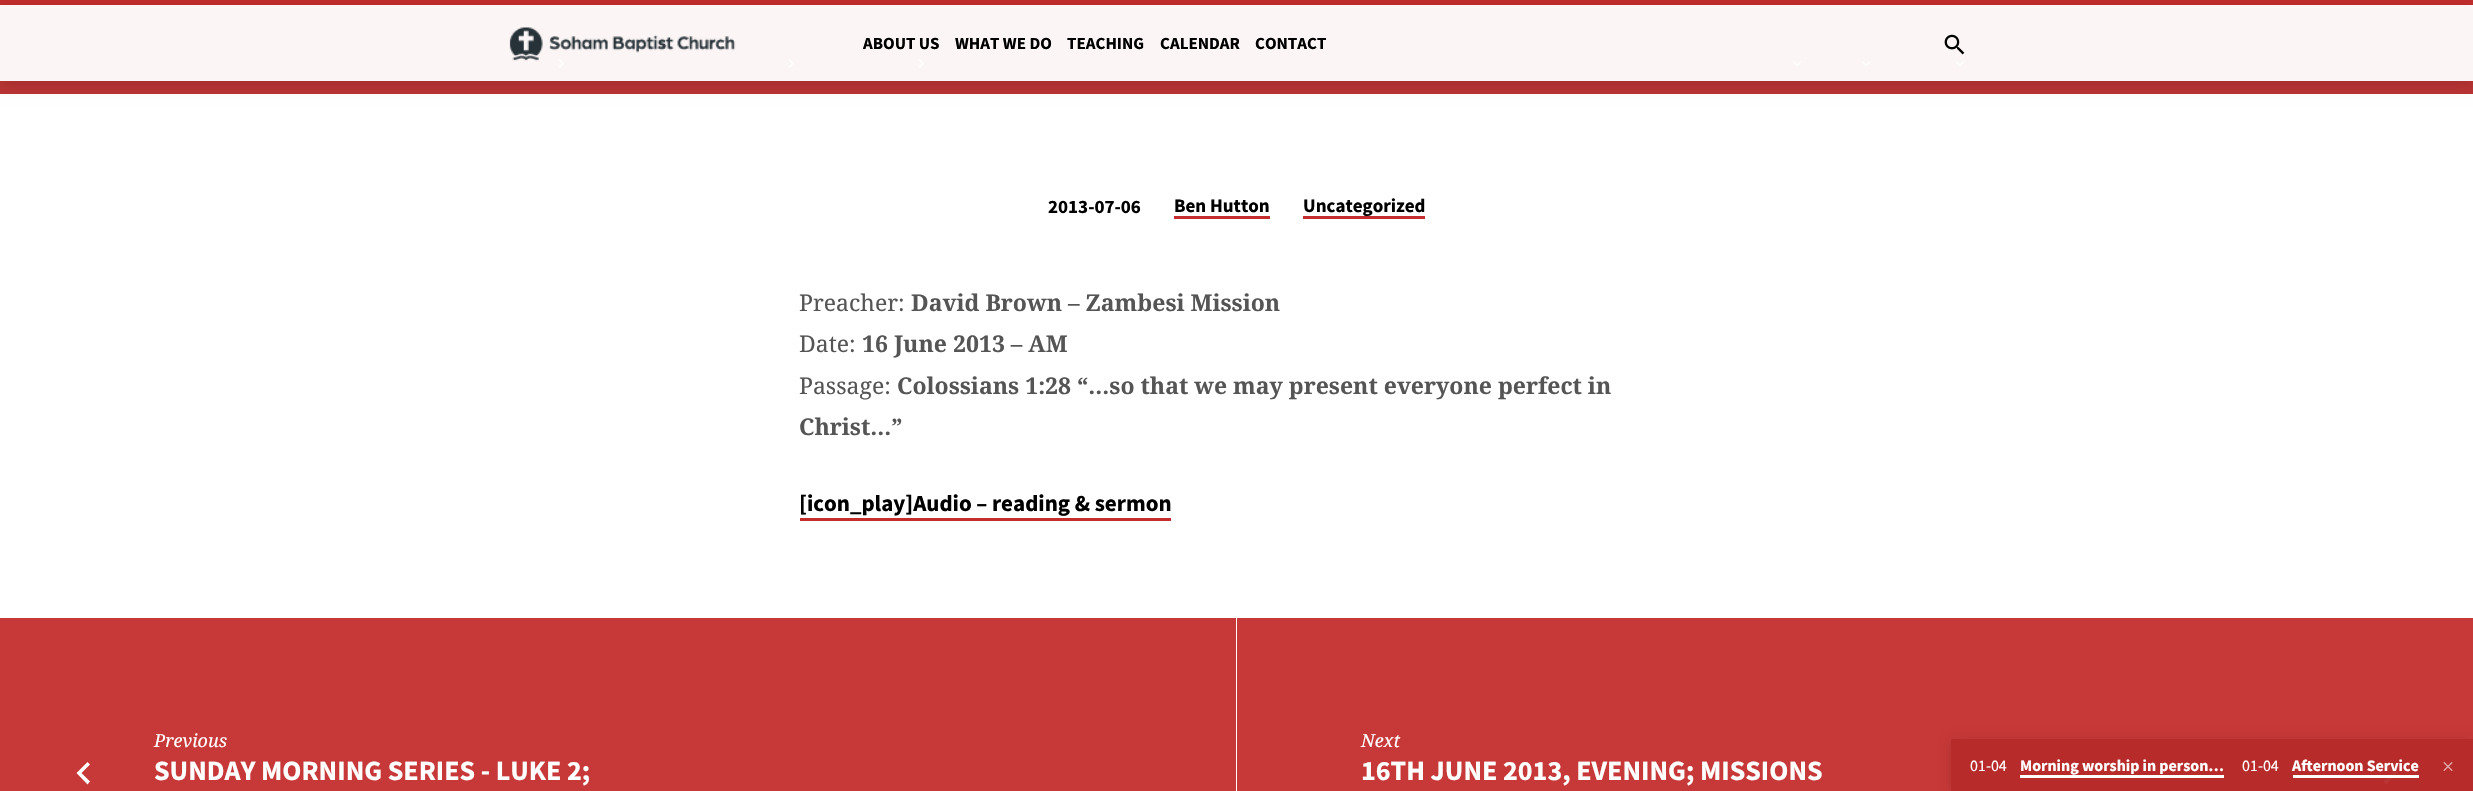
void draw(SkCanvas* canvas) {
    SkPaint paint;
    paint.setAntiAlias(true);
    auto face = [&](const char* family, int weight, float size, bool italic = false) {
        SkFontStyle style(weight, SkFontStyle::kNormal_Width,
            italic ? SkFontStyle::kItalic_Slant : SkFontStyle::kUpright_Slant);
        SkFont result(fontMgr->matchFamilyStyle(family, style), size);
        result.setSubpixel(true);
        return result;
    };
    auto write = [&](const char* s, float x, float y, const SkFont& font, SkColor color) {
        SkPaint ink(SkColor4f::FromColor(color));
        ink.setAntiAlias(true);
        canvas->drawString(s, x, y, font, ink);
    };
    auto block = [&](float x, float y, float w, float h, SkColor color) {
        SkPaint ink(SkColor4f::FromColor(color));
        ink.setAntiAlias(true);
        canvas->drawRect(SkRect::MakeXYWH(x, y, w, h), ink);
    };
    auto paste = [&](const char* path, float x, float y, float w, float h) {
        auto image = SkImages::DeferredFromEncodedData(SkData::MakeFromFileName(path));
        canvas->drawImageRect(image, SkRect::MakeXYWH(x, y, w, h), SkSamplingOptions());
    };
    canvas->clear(SK_ColorWHITE);
    block(0, 81, 2473, 13, SkColorSetRGB(186, 52, 52));
    block(0, 5, 2473, 76, SkColorSetRGB(252, 245, 245));
    paste("pic1.png", 558, 59, 6, 9);
    paste("pic1.png", 788, 59, 6, 9);
    paste("pic1.png", 918, 59, 6, 9);
    paste("pic2.png", 1793, 61, 9, 6);
    paste("pic3.png", 1861, 61, 10, 6);
    paste("pic4.png", 1955, 61, 9, 6);
    block(0, 0, 2473, 5, SkColorSetRGB(196, 45, 45));
    canvas->save();
    canvas->clipPath(SkPathBuilder(SkPathFillType::kEvenOdd).moveTo(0, 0).lineTo(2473, 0).lineTo(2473, 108).lineTo(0, 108).close().moveTo(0, 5).lineTo(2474, 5).lineTo(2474, 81).lineTo(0, 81).close().detach(), true);
    paint.setColor(SkColorSetARGB(36, 0, 0, 0));
    paint.setMaskFilter(SkMaskFilter::MakeBlur(kNormal_SkBlurStyle, 7.5f));
    canvas->drawRect(SkRect::MakeXYWH(0, 8, 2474, 76), paint);
    paint.setMaskFilter(nullptr);
    canvas->restore();
    paste("pic5.png", 509, 27, 227, 34);
    auto kFont1 = face("Source Sans Pro", 700, 17);
    write("ABOUT US", 863, 49, kFont1, SK_ColorBLACK);
    write("WHAT WE DO", 955, 49, kFont1, SK_ColorBLACK);
    write("TEACHING", 1067, 49, kFont1, SK_ColorBLACK);
    write("CALENDAR", 1160, 49, kFont1, SK_ColorBLACK);
    write("CONTACT", 1255, 49, kFont1, SK_ColorBLACK);
    paste("pic6.png", 1944, 34, 21, 21);
    auto kFont2 = face("Source Sans Pro", 700, 19);
    write("2013-07-06", 1048, 213, kFont2, SK_ColorBLACK);
    write("Ben Hutton", 1174, 212, kFont2, SK_ColorBLACK);
    block(1174, 216, 96, 3, SkColorSetRGB(196, 45, 45));
    write("Uncategorized", 1303, 212, kFont2, SK_ColorBLACK);
    block(1303, 216, 122, 3, SkColorSetRGB(196, 45, 45));
    auto kFont3 = face("Noto Serif", 400, 23);
    write("Preacher:", 799, 311, kFont3, SkColorSetRGB(85, 85, 85));
    auto kFont4 = face("Noto Serif", 700, 23);
    write("David Brown – Zambesi Mission", 911, 311, kFont4, SkColorSetRGB(85, 85, 85));
    write("Date:", 799, 352, kFont3, SkColorSetRGB(85, 85, 85));
    write("16 June 2013 – AM", 862, 352, kFont4, SkColorSetRGB(85, 85, 85));
    write("Passage:", 799, 394, kFont3, SkColorSetRGB(85, 85, 85));
    write("Colossians 1:28 “…so that we may present everyone perfect in", 897, 394, kFont4, SkColorSetRGB(85, 85, 85));
    write("Christ…”", 799, 435, kFont4, SkColorSetRGB(85, 85, 85));
    auto kFont5 = face("Source Sans Pro", 700, 23);
    write("[icon_play]Audio – reading & sermon", 799, 511, kFont5, SK_ColorBLACK);
    block(800, 518, 371, 3, SkColorSetRGB(196, 45, 45));
    block(0, 618, 2473, 173, SkColorSetRGB(199, 56, 56));
    block(1236, 618, 1, 173, SkColorSetRGB(250, 250, 250));
    paint.setColor(SK_ColorWHITE);
    canvas->drawPath(SkPathBuilder().moveTo(90, 781.5f).lineTo(81.5f, 773).lineTo(90, 764.5f).lineTo(87.5f, 762).lineTo(76.5f, 773).lineTo(87.5f, 784.5f).close().detach(), paint);
    auto kFont6 = face("Noto Serif", 400, 18, true);
    write("Previous", 154, 747, kFont6, SK_ColorWHITE);
    auto kFont7 = face("Source Sans Pro", 700, 28);
    write("SUNDAY MORNING SERIES - LUKE 2;", 154, 780, kFont7, SK_ColorWHITE);
    write("Next", 1361, 747, kFont6, SK_ColorWHITE);
    write("16TH JUNE 2013, EVENING; MISSIONS", 1361, 780, kFont7, SK_ColorWHITE);
    canvas->drawPath(SkPathBuilder().moveTo(2383.5f, 781.5f).lineTo(2392, 773).lineTo(2383.5f, 764.5f).lineTo(2386, 762).lineTo(2397.5f, 773).lineTo(2386, 784.5f).close().detach(), paint);
    canvas->save();
    canvas->clipPath(SkPathBuilder(SkPathFillType::kEvenOdd).moveTo(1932, 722).lineTo(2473, 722).lineTo(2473, 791).lineTo(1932, 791).close().moveTo(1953.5f, 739).lineTo(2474, 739).lineTo(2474, 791).lineTo(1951, 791).lineTo(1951, 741.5f).cubicTo(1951, 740, 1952, 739, 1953.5f, 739).close().detach(), true);
    paint.setColor(SkColorSetARGB(31, 0, 0, 0));
    paint.setMaskFilter(SkMaskFilter::MakeBlur(kNormal_SkBlurStyle, 6));
    canvas->drawRoundRect(SkRect::MakeXYWH(1951, 741, 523, 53), 2.5f, 2.5f, paint);
    paint.setMaskFilter(nullptr);
    canvas->restore();
    paint.setColor(SkColorSetARGB(242, 196, 45, 45));
    canvas->drawPath(SkPathBuilder().moveTo(1953.5f, 739).lineTo(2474, 739).lineTo(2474, 791).lineTo(1951, 791).lineTo(1951, 741.5f).cubicTo(1951, 740, 1952, 739, 1953.5f, 739).close().detach(), paint);
    block(1951, 739, 522, 52, SkColorSetARGB(18, 0, 0, 0));
    auto kFont8 = face("Source Sans Pro", 400, 16);
    write("01-04", 1970, 771, kFont8, SK_ColorWHITE);
    auto kFont9 = face("Source Sans Pro", 700, 16);
    write("Morning worship in person…", 2020, 771, kFont9, SK_ColorWHITE);
    block(2020, 775, 204, 3, SK_ColorWHITE);
    write("01-04", 2242, 771, kFont8, SK_ColorWHITE);
    write("Afternoon Service", 2292, 771, kFont9, SK_ColorWHITE);
    block(2293, 775, 126, 3, SK_ColorWHITE);
    paste("pic7.png", 2443, 762, 10, 9);
}
